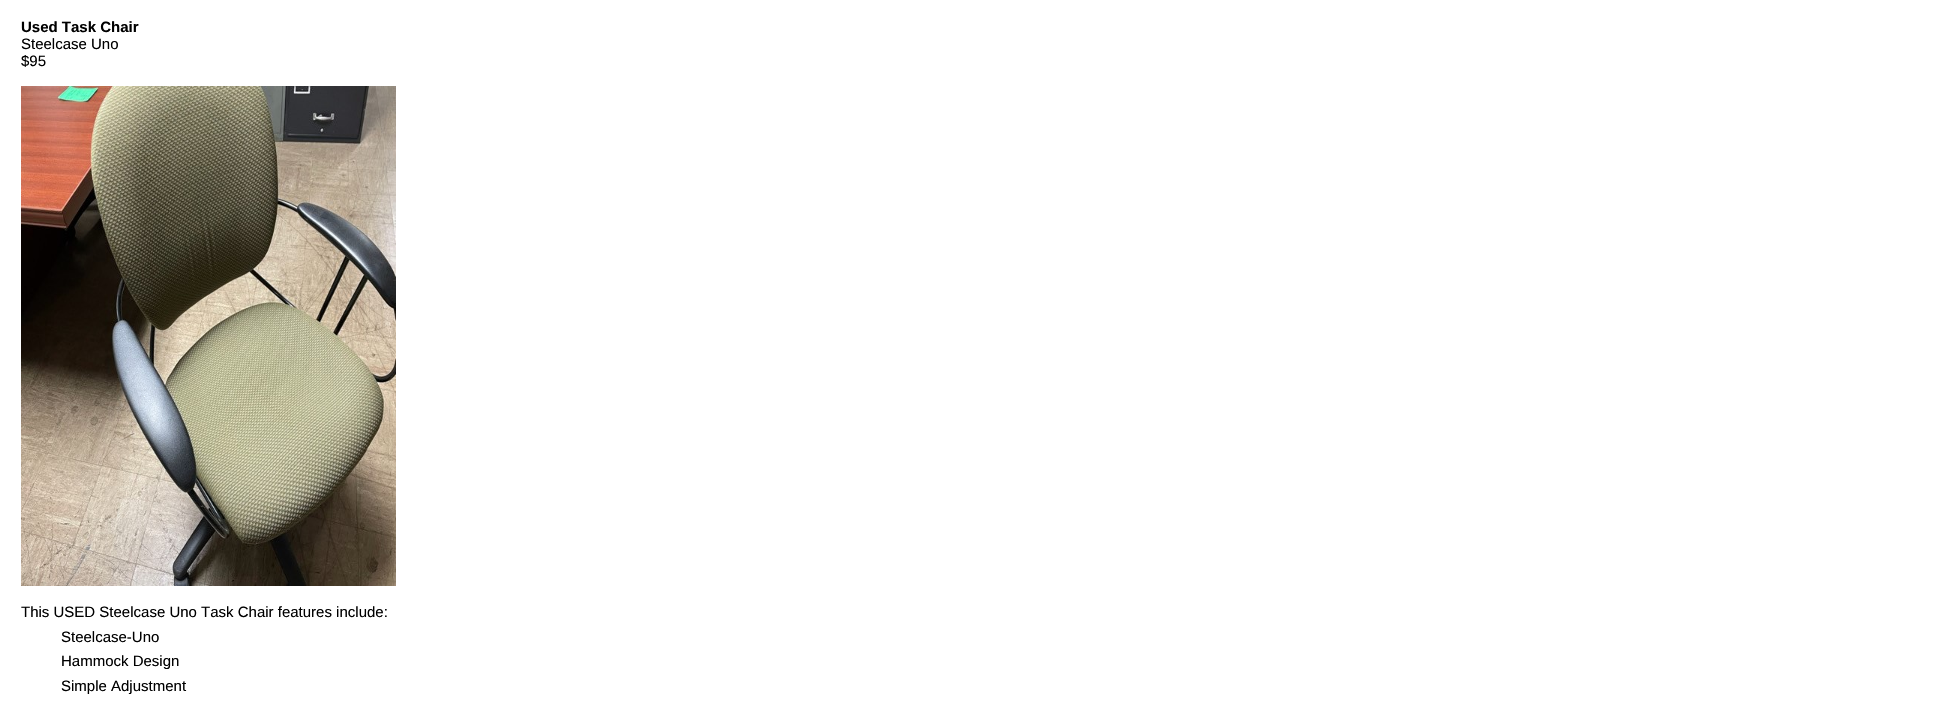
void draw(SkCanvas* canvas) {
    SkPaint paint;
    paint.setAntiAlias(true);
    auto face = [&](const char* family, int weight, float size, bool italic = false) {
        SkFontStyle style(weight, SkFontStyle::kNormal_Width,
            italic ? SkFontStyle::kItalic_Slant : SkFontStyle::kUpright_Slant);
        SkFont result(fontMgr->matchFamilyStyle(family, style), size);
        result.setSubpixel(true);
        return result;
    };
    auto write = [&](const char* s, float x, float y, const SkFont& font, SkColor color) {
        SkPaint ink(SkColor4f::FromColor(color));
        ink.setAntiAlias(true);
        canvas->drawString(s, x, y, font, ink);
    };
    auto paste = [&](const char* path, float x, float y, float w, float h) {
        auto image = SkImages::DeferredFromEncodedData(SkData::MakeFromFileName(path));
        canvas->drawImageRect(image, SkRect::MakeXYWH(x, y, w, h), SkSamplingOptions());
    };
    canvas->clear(SK_ColorWHITE);
    auto kFont1 = face("Liberation Sans", 700, 15);
    write("Used Task Chair", 21, 32, kFont1, SK_ColorBLACK);
    auto kFont2 = face("Liberation Sans", 400, 15);
    write("Steelcase Uno", 21, 49, kFont2, SK_ColorBLACK);
    write("$95", 21, 66, kFont2, SK_ColorBLACK);
    paste("pic1.png", 21, 86, 375, 500);
    write("This USED Steelcase Uno Task Chair features include:", 21, 617, kFont2, SK_ColorBLACK);
    write("Steelcase-Uno", 61, 642, kFont2, SK_ColorBLACK);
    write("Hammock Design", 61, 666, kFont2, SK_ColorBLACK);
    write("Simple Adjustment", 61, 691, kFont2, SK_ColorBLACK);
}
